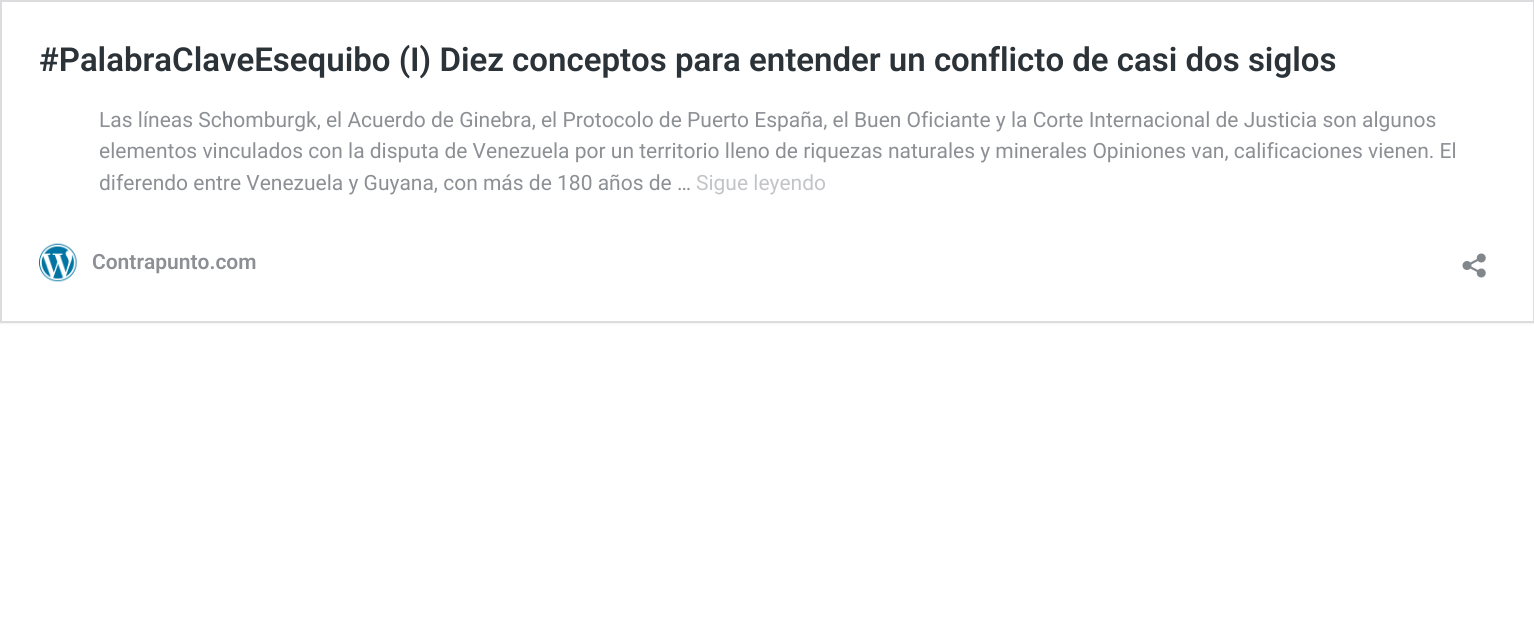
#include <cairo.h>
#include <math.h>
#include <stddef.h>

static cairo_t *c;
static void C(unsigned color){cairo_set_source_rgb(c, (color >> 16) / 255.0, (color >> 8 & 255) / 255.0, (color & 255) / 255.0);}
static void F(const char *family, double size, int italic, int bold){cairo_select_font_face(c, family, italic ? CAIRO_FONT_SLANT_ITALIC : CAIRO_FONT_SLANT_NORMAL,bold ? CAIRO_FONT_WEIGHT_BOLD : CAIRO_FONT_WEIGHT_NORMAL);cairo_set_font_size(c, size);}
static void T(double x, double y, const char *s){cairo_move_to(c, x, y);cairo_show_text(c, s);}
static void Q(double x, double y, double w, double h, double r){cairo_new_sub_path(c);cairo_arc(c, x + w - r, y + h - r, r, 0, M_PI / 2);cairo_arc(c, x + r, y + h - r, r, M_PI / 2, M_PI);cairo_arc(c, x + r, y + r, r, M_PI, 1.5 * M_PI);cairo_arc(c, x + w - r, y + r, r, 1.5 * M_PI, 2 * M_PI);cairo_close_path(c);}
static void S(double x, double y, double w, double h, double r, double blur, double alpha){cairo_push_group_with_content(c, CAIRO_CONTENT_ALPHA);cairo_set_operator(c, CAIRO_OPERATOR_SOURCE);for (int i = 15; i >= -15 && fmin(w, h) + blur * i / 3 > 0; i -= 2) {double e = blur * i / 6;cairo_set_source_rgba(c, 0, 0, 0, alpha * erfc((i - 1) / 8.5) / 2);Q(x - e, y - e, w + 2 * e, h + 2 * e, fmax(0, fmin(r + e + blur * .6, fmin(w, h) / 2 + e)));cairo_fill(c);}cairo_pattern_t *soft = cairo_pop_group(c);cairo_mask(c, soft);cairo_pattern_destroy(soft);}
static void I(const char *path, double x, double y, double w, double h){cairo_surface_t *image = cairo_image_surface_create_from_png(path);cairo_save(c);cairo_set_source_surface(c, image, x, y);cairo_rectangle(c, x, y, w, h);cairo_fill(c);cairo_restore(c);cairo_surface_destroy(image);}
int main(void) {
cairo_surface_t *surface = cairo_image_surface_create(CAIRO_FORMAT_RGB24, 1534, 644);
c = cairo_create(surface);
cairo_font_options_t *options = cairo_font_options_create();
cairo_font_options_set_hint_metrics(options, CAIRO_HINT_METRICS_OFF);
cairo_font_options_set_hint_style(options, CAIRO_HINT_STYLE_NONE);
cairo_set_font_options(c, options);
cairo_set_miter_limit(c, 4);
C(0xffffff);
cairo_paint(c);
C(0x000000);
S(0,2,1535,322,0,1,.05);
C(0xffffff);
cairo_rectangle(c,1,1,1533,321);
cairo_fill_preserve(c);
C(0xdcdcde);
cairo_stroke(c);
F("Roboto SemiBold",33,0,0);
C(0x2c3338);
T(39,71,"#PalabraClaveEsequibo (I) Diez conceptos para entender un conflicto de casi dos siglos");
F("Roboto",21,0,0);
C(0x8c8f94);
T(99,127,"Las líneas Schomburgk, el Acuerdo de Ginebra, el Protocolo de Puerto España, el Buen Oficiante y la Corte Internacional de Justicia son algunos");
T(99,158,"elementos vinculados con la disputa de Venezuela por un territorio lleno de riquezas naturales y minerales Opiniones van, calificaciones vienen. El");
T(99,190,"diferendo entre Venezuela y Guyana, con más de 180 años de …");
C(0xc3c4c7);
T(696,190,"Sigue leyendo");
I("1.png",39,243,38,39);
F("Roboto SemiBold",21,0,0);
C(0x8c8f94);
T(92,269,"Contrapunto.com");
I("2.png",1462,253,24,25);
cairo_surface_write_to_png(surface, "o.png");
cairo_font_options_destroy(options);
cairo_destroy(c);
cairo_surface_destroy(surface);
return 0;
}
